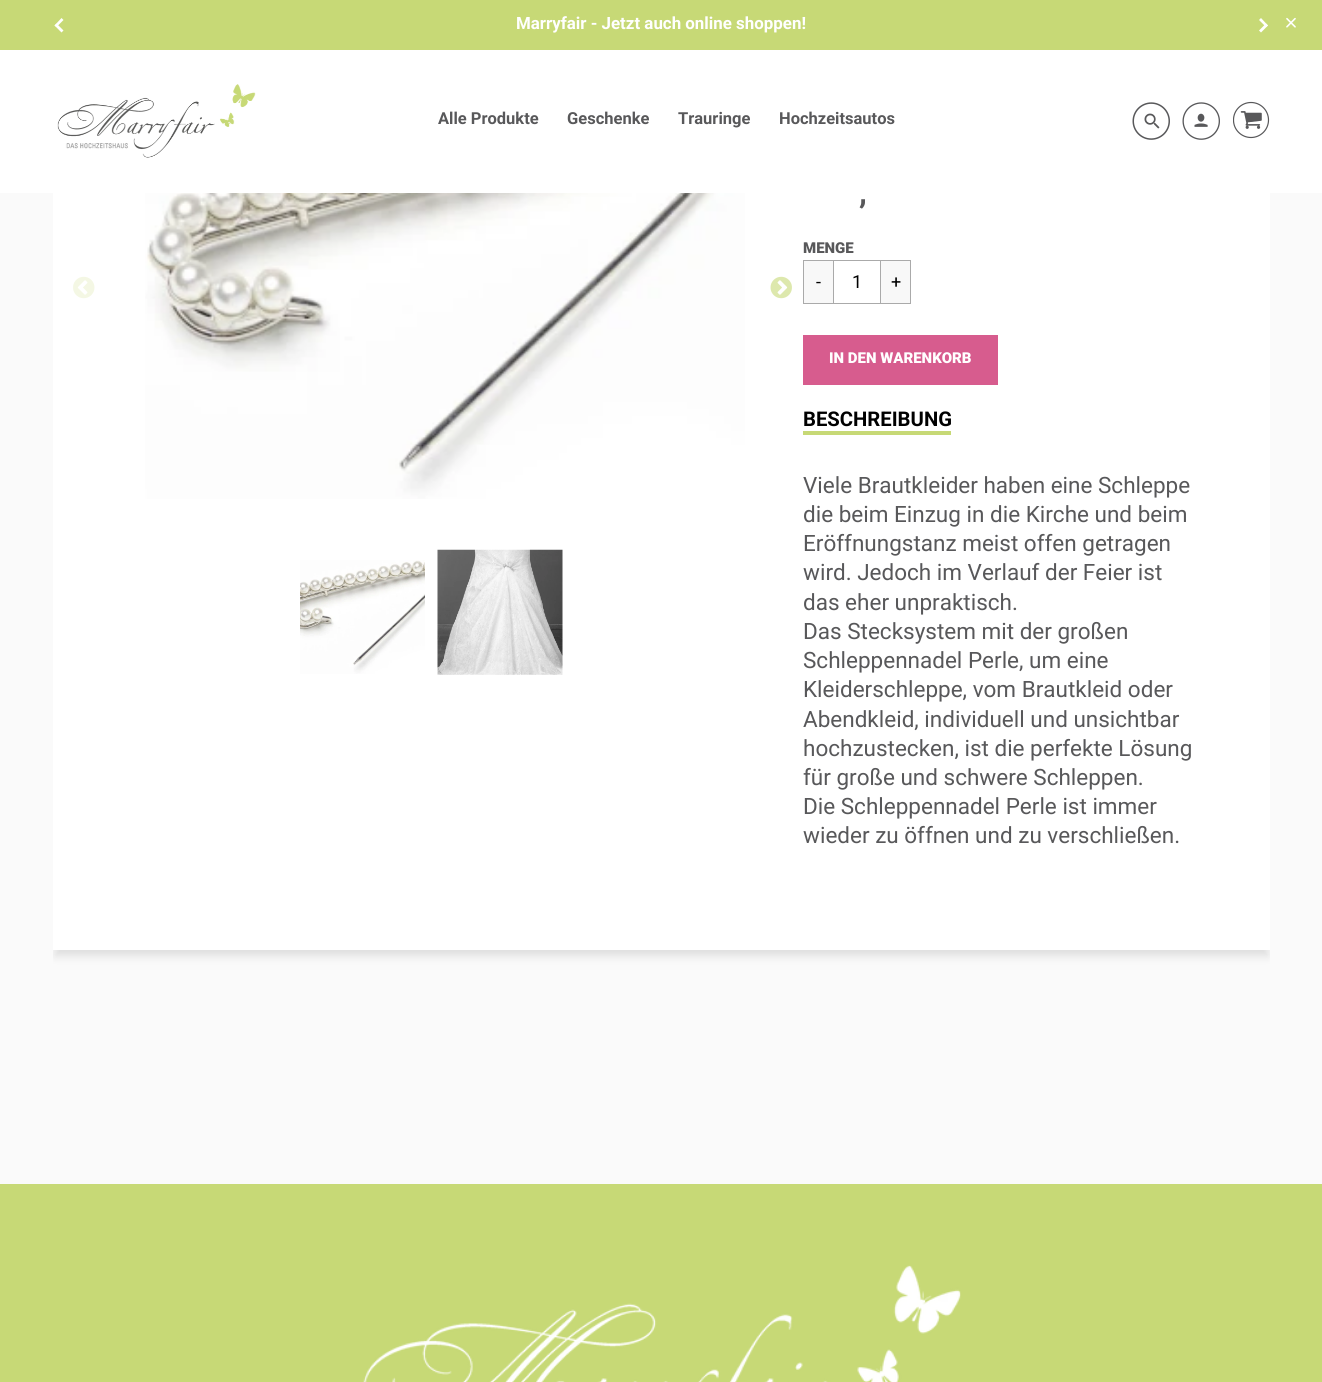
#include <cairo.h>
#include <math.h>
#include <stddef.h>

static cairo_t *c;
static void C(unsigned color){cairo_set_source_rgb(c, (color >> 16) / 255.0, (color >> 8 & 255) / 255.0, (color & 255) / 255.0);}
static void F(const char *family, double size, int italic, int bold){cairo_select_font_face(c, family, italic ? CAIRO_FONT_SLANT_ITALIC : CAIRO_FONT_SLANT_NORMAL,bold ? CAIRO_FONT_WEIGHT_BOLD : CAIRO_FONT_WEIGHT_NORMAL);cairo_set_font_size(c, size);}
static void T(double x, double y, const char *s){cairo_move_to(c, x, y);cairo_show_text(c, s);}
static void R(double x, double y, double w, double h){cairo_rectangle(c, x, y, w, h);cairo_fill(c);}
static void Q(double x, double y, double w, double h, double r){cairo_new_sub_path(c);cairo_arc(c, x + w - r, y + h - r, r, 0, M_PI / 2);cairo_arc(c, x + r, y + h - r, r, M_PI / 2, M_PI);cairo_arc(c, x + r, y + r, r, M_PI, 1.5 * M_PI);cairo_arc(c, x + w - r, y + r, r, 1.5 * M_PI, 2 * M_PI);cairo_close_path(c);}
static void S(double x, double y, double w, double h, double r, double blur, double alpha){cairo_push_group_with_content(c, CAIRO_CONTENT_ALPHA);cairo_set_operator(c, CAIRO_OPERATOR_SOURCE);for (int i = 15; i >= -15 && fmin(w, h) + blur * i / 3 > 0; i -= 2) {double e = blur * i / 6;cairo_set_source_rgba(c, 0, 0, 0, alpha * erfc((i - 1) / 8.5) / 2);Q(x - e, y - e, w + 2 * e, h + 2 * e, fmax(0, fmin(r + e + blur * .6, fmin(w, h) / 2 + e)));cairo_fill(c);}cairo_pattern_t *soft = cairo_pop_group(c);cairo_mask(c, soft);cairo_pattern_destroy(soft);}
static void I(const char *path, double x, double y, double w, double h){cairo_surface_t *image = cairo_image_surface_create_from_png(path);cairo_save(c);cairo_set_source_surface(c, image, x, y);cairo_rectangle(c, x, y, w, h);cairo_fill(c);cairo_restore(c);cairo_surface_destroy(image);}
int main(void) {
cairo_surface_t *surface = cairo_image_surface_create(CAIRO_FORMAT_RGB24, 1322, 1382);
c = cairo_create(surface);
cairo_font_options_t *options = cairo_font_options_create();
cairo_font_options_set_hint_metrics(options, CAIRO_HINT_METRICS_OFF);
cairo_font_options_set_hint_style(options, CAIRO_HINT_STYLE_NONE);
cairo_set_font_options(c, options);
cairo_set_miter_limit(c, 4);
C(0xfafafa);
cairo_paint(c);
cairo_save(c);
cairo_rectangle(c,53,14,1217,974);
cairo_clip(c);
C(0xa3a3a3);
S(55,25,1213,931,0,4.5,.32);
cairo_restore(c);
C(0xc7d976);
R(0,0,1322,50);
C(0xffffff);
cairo_new_path(c);
cairo_move_to(c,61.5,32.5);
cairo_line_to(c,54.5,25.5);
cairo_line_to(c,56.5,23.5);
cairo_line_to(c,63.5,30.5);
cairo_close_path(c);
cairo_fill(c);
cairo_new_path(c);
cairo_move_to(c,56.5,27);
cairo_line_to(c,54.5,25.5);
cairo_line_to(c,61.5,18);
cairo_line_to(c,63.5,20);
cairo_close_path(c);
cairo_fill(c);
F("Roboto",16.9,0,1);
T(516,29,"Marryfair - Jetzt auch online shoppen!");
cairo_new_path(c);
cairo_move_to(c,1261,18);
cairo_line_to(c,1268,25.5);
cairo_line_to(c,1266,27);
cairo_line_to(c,1259,20);
cairo_close_path(c);
cairo_fill(c);
cairo_new_path(c);
cairo_move_to(c,1266,23.5);
cairo_line_to(c,1268,25.5);
cairo_line_to(c,1261,32.5);
cairo_line_to(c,1259,30.5);
cairo_close_path(c);
cairo_fill(c);
I("1.png",1286,17,10,11);
R(0,50,1322,143);
I("2.png",57,84,199,74);
F("Roboto",16.5,0,1);
C(0x58585a);
T(438,124,"Alle Produkte");
T(567,124,"Geschenke");
T(678,124,"Trauringe");
T(779,124,"Hochzeitsautos");
I("3.png",1132,102,38,38);
I("4.png",1182,102,38,38);
I("5.png",1233,101,37,38);
C(0xffffff);
R(53,193,1217,757);
I("6.png",73,276,22,23);
I("7.png",145,193,600,306);
I("8.png",770,276,22,23);
I("9.png",300,560,125,114);
I("10.png",437,549,126,126);
F("Roboto",32,0,1);
C(0x58585a);
T(859,203,",");
F("Roboto Black",15,0,0);
T(803,253,"MENGE");
C(0xaaaaaa);
R(833,260,50,1);
R(833,303,50,1);
C(0xf8f8f8);
cairo_rectangle(c,803.5,260.5,30,43);
cairo_fill_preserve(c);
C(0xaaaaaa);
cairo_set_line_width(c,1);
cairo_stroke(c);
F("Roboto",18,0,0);
C(0x000000);
T(816,288,"-");
T(852,288,"1");
C(0xf8f8f8);
cairo_rectangle(c,880.5,260.5,30,43);
cairo_fill_preserve(c);
C(0xaaaaaa);
cairo_stroke(c);
C(0x000000);
T(891,288,"+");
C(0xd75c8e);
R(803,335,195,50);
F("Roboto Black",15,0,0);
C(0xffffff);
T(829,363,"IN DEN WARENKORB");
C(0xc7d976);
R(803,431,148,4);
F("Roboto",20.25,0,1);
C(0x000000);
T(803,426,"BESCHREIBUNG");
F("Roboto",22.5,0,0);
C(0x58585a);
T(803,493,"Viele Brautkleider haben eine Schleppe");
T(803,522,"die beim Einzug in die Kirche und beim");
T(803,551,"Eröffnungstanz meist offen getragen");
T(803,580,"wird. Jedoch im Verlauf der Feier ist");
T(803,610,"das eher unpraktisch.");
T(803,639,"Das Stecksystem mit der großen");
T(803,668,"Schleppennadel Perle, um eine");
T(803,697,"Kleiderschleppe, vom Brautkleid oder");
T(803,727,"Abendkleid, individuell und unsichtbar");
T(803,756,"hochzustecken, ist die perfekte Lösung");
T(803,785,"für große und schwere Schleppen.");
T(803,814,"Die Schleppennadel Perle ist immer");
T(803,843,"wieder zu öffnen und zu verschließen.");
C(0xc7d976);
R(0,1184,1322,198);
I("11.png",363,1265,598,117);
cairo_surface_write_to_png(surface, "o.png");
cairo_font_options_destroy(options);
cairo_destroy(c);
cairo_surface_destroy(surface);
return 0;
}
